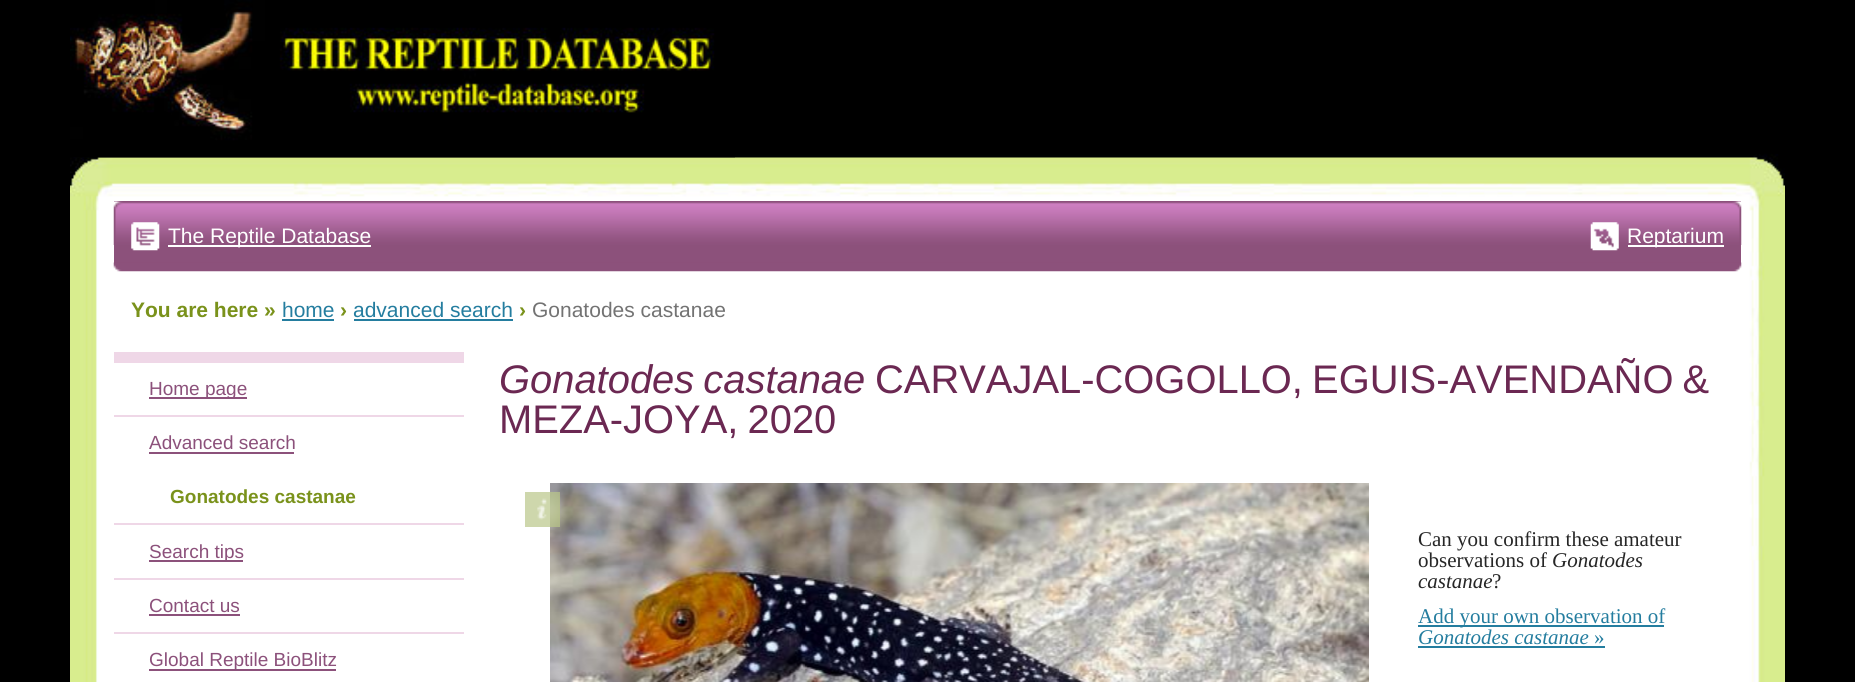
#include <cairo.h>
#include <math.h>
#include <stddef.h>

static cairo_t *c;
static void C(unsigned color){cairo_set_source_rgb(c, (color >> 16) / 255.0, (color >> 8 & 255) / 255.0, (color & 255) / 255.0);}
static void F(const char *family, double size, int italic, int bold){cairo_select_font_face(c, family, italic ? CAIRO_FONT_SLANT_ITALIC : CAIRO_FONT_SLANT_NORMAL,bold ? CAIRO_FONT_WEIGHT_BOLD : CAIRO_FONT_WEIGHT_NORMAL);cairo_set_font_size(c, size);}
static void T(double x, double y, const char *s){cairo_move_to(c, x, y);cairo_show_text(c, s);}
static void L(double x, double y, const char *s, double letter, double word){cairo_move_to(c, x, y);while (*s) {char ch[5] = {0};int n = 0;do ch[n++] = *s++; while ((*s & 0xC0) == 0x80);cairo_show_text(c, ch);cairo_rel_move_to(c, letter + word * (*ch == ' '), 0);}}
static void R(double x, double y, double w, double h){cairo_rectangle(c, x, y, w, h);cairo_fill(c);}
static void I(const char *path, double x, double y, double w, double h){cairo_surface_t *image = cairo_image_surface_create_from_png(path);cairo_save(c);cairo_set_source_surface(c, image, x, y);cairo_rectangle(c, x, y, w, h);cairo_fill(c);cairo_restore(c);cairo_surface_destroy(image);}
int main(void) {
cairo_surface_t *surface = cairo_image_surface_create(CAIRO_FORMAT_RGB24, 1855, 682);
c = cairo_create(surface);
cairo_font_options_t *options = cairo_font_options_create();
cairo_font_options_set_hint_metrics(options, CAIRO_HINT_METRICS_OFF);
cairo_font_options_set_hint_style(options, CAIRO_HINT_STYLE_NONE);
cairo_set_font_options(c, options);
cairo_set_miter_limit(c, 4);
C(0x000000);
cairo_paint(c);
I("1.png",70,0,1715,682);
I("2.png",70,0,665,158);
C(0x8c517b);
R(114,201,1627,62);
I("3.png",113,201,1629,44);
I("4.png",131,222,29,29);
C(0xffffff);
R(168,245,203,2);
F("Liberation Sans",21,0,0);
T(168,243,"The Reptile Database");
I("5.png",1590,222,29,29);
R(1628,245,96,2);
T(1627,243,"Reptarium");
I("6.png",113,262,1629,10);
F("Liberation Sans",21,0,1);
C(0x7a921b);
T(131,317,"You are here »");
F("Liberation Sans",21,0,0);
C(0x247d9f);
T(282,317,"home");
R(282,319,52,2);
F("Liberation Sans",21,0,1);
C(0x7a921b);
T(340,317,"›");
F("Liberation Sans",21,0,0);
C(0x247d9f);
T(353,317,"advanced search");
R(354,319,159,2);
F("Liberation Sans",21,0,1);
C(0x7a921b);
T(519,317,"›");
F("Liberation Sans",21,0,0);
C(0x737373);
T(532,317,"Gonatodes castanae");
C(0xefd7e7);
R(114,352,350,11);
C(0x8c517b);
R(149,397,98,2);
F("Liberation Sans",19,0,0);
T(149,395,"Home page");
C(0xefd7e7);
R(114,415,350,2);
C(0x8c517b);
T(149,449,"Advanced search");
R(149,452,145,2);
F("Liberation Sans",19,0,1);
C(0x7a921b);
T(170,503,"Gonatodes castanae");
C(0xefd7e7);
R(114,523,350,2);
C(0x8c517b);
R(149,560,94,2);
F("Liberation Sans",19,0,0);
T(149,558,"Search tips");
C(0xefd7e7);
R(114,578,350,2);
C(0x8c517b);
T(149,612,"Contact us");
R(149,614,91,2);
C(0xefd7e7);
R(114,632,350,2);
C(0x8c517b);
R(149,669,187,2);
T(149,666,"Global Reptile BioBlitz");
F("Liberation Sans",39.9,1,0);
C(0x6b2852);
L(499,393,"Gonatodes castanae",0,-2);
F("Liberation Sans",39.9,0,0);
L(875,393,"CARVAJAL-COGOLLO, EGUIS-AVENDAÑO &",0,-2);
L(499,433,"MEZA-JOYA, 2020",0,-2);
C(0x247d9f);
R(1418,625,246,2);
F("Liberation Serif",21,0,0);
T(1418,623,"Add your own observation of");
C(0xffffff);
R(1417,622,1,1);
I("8.png",550,483,819,199);
cairo_set_source_rgba(c,0.729,0.78,0.537,0.7);
R(525,492,35,35);
I("7.png",537,498,10,22);
C(0x262626);
T(1418,546,"Can you confirm these amateur");
T(1418,567,"observations of");
F("Liberation Serif",21,1,0);
T(1552,567,"Gonatodes");
T(1418,588,"castanae");
F("Liberation Serif",21,0,0);
T(1492,588,"?");
F("Liberation Serif",21,1,0);
C(0x247d9f);
T(1418,644,"Gonatodes castanae");
F("Liberation Serif",21,0,0);
T(1594,644,"»");
R(1418,646,187,2);
cairo_surface_write_to_png(surface, "o.png");
cairo_font_options_destroy(options);
cairo_destroy(c);
cairo_surface_destroy(surface);
return 0;
}
